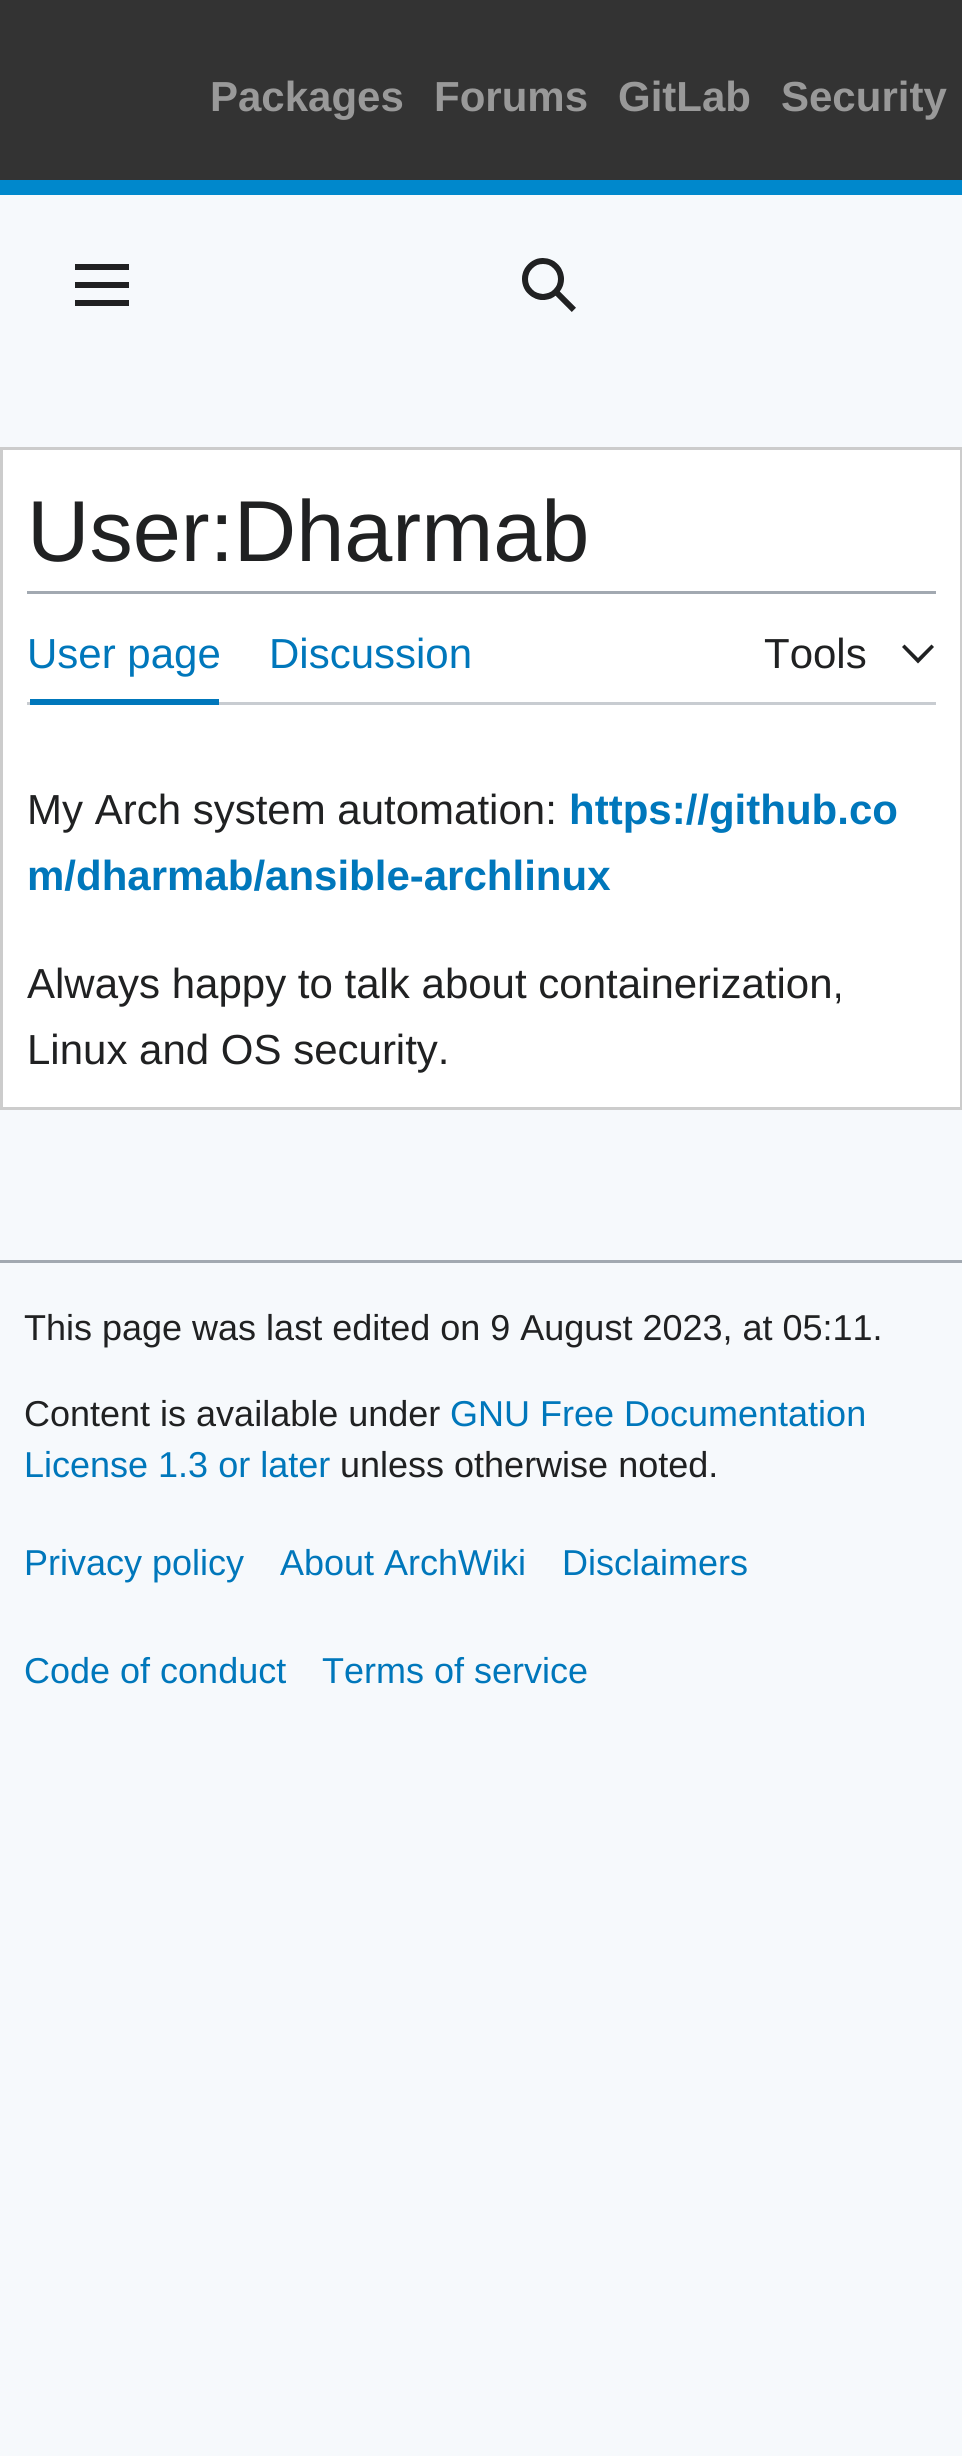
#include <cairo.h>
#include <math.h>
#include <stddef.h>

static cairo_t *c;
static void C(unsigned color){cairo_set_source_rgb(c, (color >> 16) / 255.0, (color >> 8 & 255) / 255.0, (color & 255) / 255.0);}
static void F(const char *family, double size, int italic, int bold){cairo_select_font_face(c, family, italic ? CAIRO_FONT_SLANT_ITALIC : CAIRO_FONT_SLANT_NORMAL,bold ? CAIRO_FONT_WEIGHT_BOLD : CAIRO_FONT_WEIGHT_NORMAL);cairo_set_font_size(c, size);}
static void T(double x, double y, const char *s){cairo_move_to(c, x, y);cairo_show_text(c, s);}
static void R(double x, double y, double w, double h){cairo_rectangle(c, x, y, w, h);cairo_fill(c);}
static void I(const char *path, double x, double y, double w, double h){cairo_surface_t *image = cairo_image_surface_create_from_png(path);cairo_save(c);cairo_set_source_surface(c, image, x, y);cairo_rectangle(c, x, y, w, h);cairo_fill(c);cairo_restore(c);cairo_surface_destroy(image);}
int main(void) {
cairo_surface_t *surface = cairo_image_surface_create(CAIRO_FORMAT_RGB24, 962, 2456);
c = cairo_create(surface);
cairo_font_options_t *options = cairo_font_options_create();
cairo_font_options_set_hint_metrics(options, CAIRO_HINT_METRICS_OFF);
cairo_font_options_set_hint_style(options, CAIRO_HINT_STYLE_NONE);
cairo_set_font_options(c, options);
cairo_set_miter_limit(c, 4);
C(0xf6f9fc);
cairo_paint(c);
C(0x333333);
R(0,0,962,180);
C(0x0088cc);
R(0,180,962,15);
F("Liberation Sans",42,0,1);
C(0x999999);
T(210,111,"Packages");
T(434,111,"Forums");
T(618,111,"GitLab");
T(781,111,"Security");
I("1.png",75,264,54,42);
I("2.png",522,258,54,54);
C(0xffffff);
cairo_rectangle(c,1.5,448.5,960,660);
cairo_fill_preserve(c);
C(0xcccccc);
cairo_set_line_width(c,3);
cairo_stroke(c);
F("Liberation Sans",86.5,0,0);
C(0x202122);
T(27,561,"User:Dharmab");
C(0xa2a9b1);
R(27,591,909,3);
C(0xc8ccd1);
R(27,702,909,3);
C(0x0077bb);
R(30,699,189,6);
F("Liberation Sans",42,0,0);
T(27,668,"User page");
T(269,668,"Discussion");
C(0x202122);
T(764,668,"Tools");
cairo_new_path(c);
cairo_move_to(c,931.5,644.5);
cairo_line_to(c,918,658);
cairo_line_to(c,904.5,644.5);
cairo_line_to(c,902,647);
cairo_line_to(c,918,663.5);
cairo_line_to(c,934,647);
cairo_close_path(c);
cairo_fill(c);
T(27,824,"My Arch system automation:");
F("Liberation Sans",42,0,1);
C(0x0077bb);
T(569,824,"https://github.co");
T(27,890,"m/dharmab/ansible-archlinux");
F("Liberation Sans",42,0,0);
C(0x202122);
T(27,998,"Always happy to talk about containerization,");
T(27,1064,"Linux and OS security.");
C(0xa2a9b1);
R(0,1260,962,3);
F("Liberation Sans",36,0,0);
C(0x202122);
T(24,1340,"This page was last edited on 9 August 2023, at 05:11.");
T(24,1426,"Content is available under");
C(0x0077bb);
T(450,1426,"GNU Free Documentation");
T(24,1477,"License 1.3 or later");
C(0x202122);
T(340,1477,"unless otherwise noted.");
C(0x0077bb);
T(24,1575,"Privacy policy");
T(280,1575,"About ArchWiki");
T(562,1575,"Disclaimers");
T(24,1683,"Code of conduct");
T(322,1683,"Terms of service");
cairo_surface_write_to_png(surface, "o.png");
cairo_font_options_destroy(options);
cairo_destroy(c);
cairo_surface_destroy(surface);
return 0;
}
